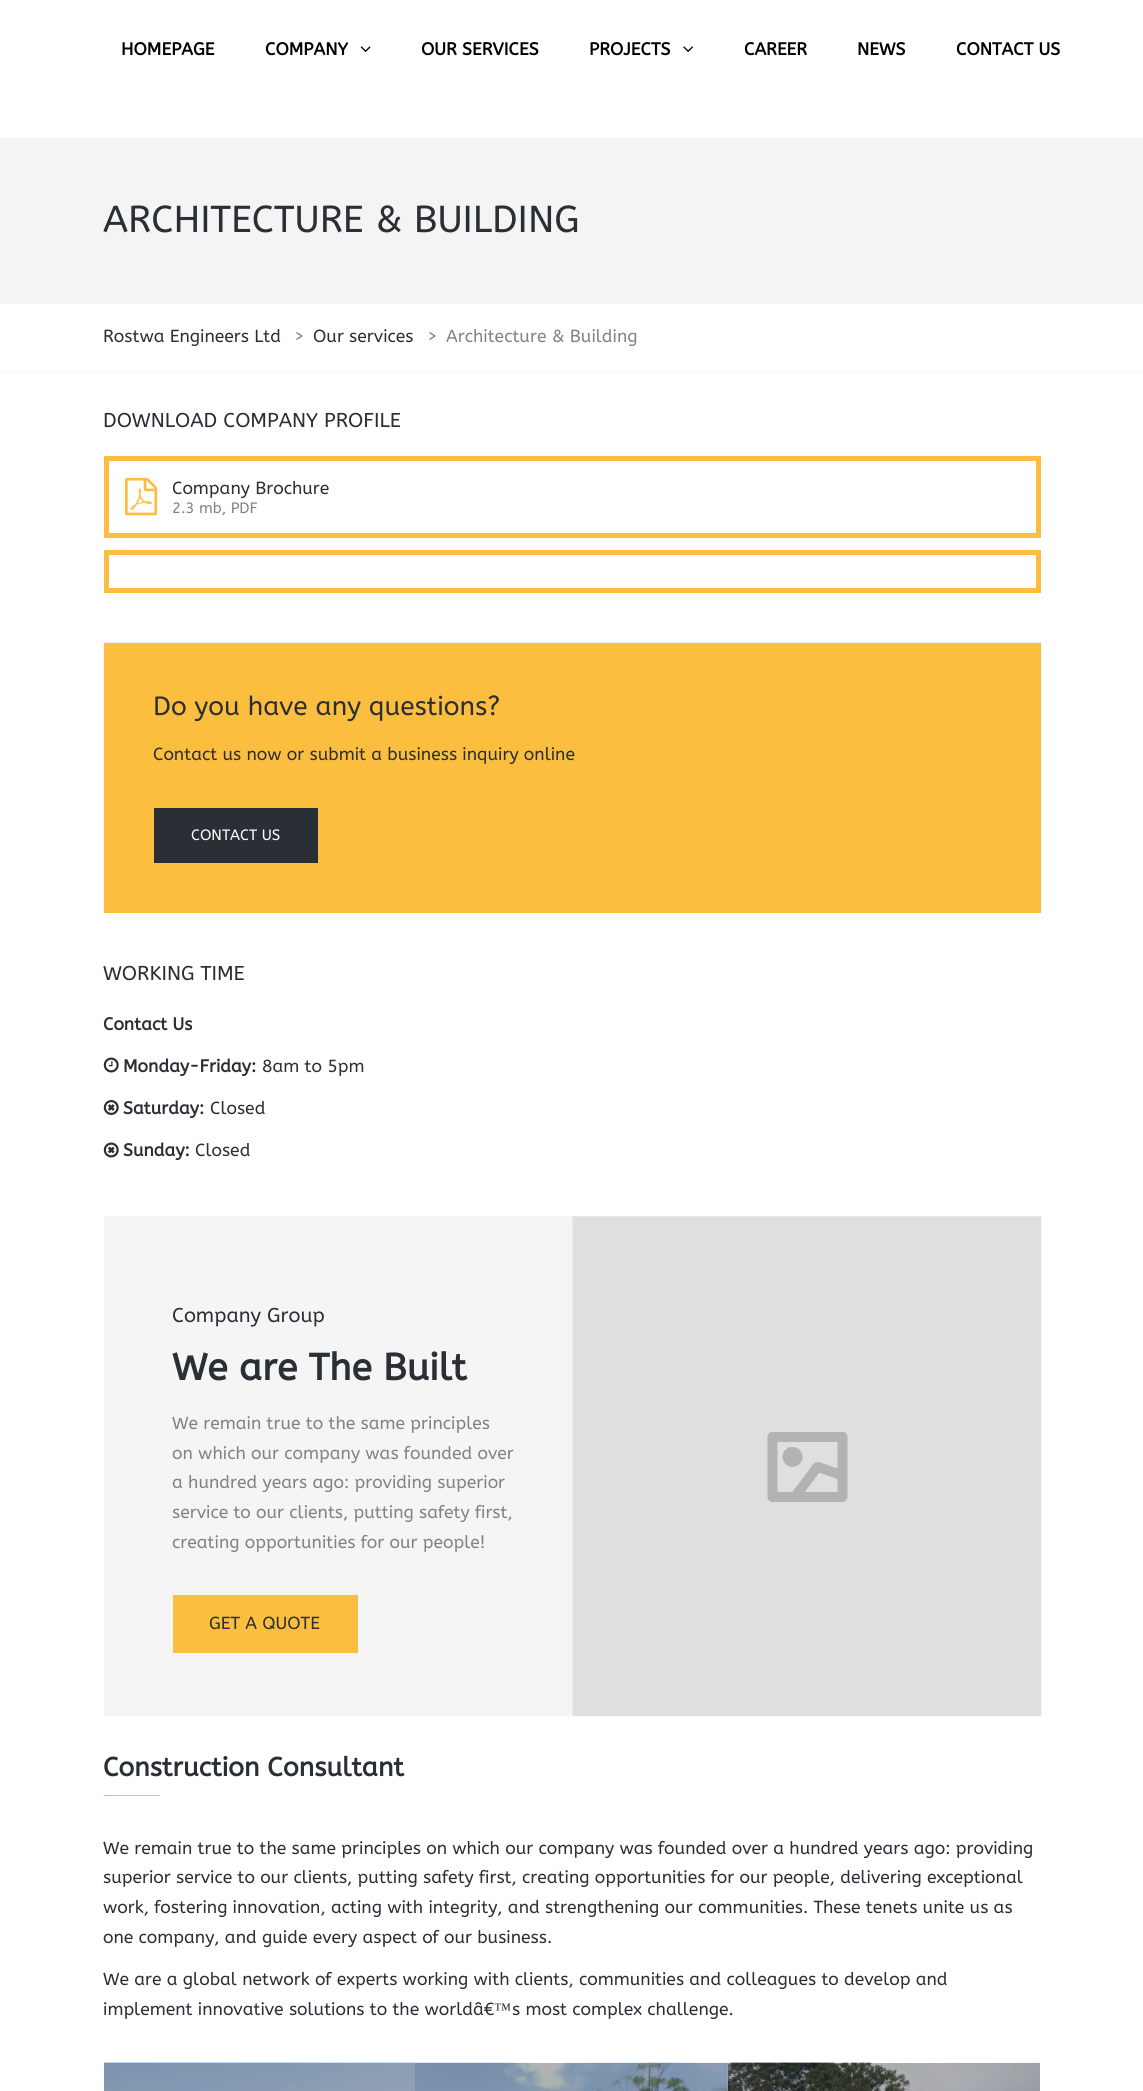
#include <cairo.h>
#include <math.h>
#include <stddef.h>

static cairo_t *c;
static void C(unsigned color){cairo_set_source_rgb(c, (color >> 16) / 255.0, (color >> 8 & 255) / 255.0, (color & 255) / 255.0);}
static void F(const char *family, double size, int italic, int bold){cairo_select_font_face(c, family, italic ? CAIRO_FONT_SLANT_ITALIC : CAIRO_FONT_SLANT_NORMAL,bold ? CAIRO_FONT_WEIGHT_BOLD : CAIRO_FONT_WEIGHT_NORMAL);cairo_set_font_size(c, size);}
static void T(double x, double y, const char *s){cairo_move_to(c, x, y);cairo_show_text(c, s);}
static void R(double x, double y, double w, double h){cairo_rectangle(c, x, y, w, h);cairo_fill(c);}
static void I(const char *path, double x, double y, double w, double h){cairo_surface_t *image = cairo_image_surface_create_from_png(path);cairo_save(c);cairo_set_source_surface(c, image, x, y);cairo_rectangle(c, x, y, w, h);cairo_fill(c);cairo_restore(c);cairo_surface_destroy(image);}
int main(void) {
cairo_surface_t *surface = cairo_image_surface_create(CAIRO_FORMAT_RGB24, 1143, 2091);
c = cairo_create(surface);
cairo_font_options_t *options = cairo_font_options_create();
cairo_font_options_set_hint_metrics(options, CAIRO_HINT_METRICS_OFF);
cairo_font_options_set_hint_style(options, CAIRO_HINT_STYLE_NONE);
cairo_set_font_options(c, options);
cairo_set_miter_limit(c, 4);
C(0xffffff);
cairo_paint(c);
F("ABeeZee",17.5,0,1);
C(0x000000);
T(121,55,"HOMEPAGE");
T(265,55,"COMPANY");
I("1.png",360,46,11,6);
T(421,55,"OUR SERVICES");
T(589,55,"PROJECTS");
I("2.png",683,46,10,6);
T(744,55,"CAREER");
T(857,55,"NEWS");
T(956,55,"CONTACT US");
C(0xf4f4f4);
R(0,138,1143,166);
F("ABeeZee",37.5,0,0);
C(0x2a2f35);
T(103,232,"ARCHITECTURE & BUILDING");
C(0xf5f5f5);
R(0,371,1143,1);
F("ABeeZee",17.5,0,0);
C(0x2a2f35);
T(103,342,"Rostwa Engineers Ltd");
C(0x828282);
T(294,342,">");
C(0x2a2f35);
T(313,342,"Our services");
C(0x828282);
T(427,342,">");
T(446,342,"Architecture & Building");
F("ABeeZee",20,0,0);
C(0x2a2f35);
T(103,427,"DOWNLOAD COMPANY PROFILE");
cairo_rectangle(c,106.5,458.5,932,77);
C(0xfbbe3f);
cairo_set_line_width(c,5);
cairo_stroke(c);
I("3.png",125,477,33,39);
F("ABeeZee",17.5,0,0);
C(0x2a2f35);
T(172,494,"Company Brochure");
F("ABeeZee",15,0,0);
C(0x828282);
T(172,513,"2.3 mb, PDF");
cairo_rectangle(c,106.5,552.5,932,38);
C(0xfbbe3f);
cairo_stroke(c);
I("4.png",103,642,939,271);
R(104,643,937,270);
F("ABeeZee",26.25,0,0);
C(0x2a2f35);
T(153,715,"Do you have any questions?");
F("ABeeZee",17.5,0,0);
T(153,760,"Contact us now or submit a business inquiry online");
R(154,808,164,55);
F("ABeeZee",15,0,0);
C(0xffffff);
T(191,840,"CONTACT US");
F("ABeeZee",20,0,0);
C(0x2a2f35);
T(103,980,"WORKING TIME");
F("ABeeZee",17.5,0,1);
T(103,1030,"Contact Us");
I("5.png",103,1057,16,16);
T(123,1072,"Monday-Friday:");
F("ABeeZee",17.5,0,0);
T(262,1072,"8am to 5pm");
I("6.png",103,1100,16,15);
F("ABeeZee",17.5,0,1);
T(123,1114,"Saturday:");
F("ABeeZee",17.5,0,0);
T(210,1114,"Closed");
I("7.png",103,1142,16,16);
F("ABeeZee",17.5,0,1);
T(123,1156,"Sunday:");
F("ABeeZee",17.5,0,0);
T(195,1156,"Closed");
C(0xf5f5f5);
R(104,1216,469,500);
F("ABeeZee",20,0,0);
C(0x2a2f35);
T(172,1322,"Company Group");
F("ABeeZee",37.5,0,1);
T(172,1380,"We are The Built");
F("ABeeZee",17.5,0,0);
C(0x828282);
T(172,1429,"We remain true to the same principles");
T(172,1459,"on which our company was founded over");
T(172,1488,"a hundred years ago: providing superior");
T(172,1518,"service to our clients, putting safety first,");
T(172,1548,"creating opportunities for our people!");
C(0xfbbe3f);
R(173,1595,185,58);
C(0x2a2f35);
T(209,1629,"GET A QUOTE");
I("8.png",572,1216,470,501);
F("ABeeZee",26.25,0,1);
T(103,1776,"Construction Consultant");
C(0xfbbe3f);
R(104,1795,56,1);
F("ABeeZee",17.5,0,0);
C(0x2a2f35);
T(103,1854,"We remain true to the same principles on which our company was founded over a hundred years ago: providing");
T(103,1883,"superior service to our clients, putting safety first, creating opportunities for our people, delivering exceptional");
T(103,1913,"work, fostering innovation, acting with integrity, and strengthening our communities. These tenets unite us as");
T(103,1943,"one company, and guide every aspect of our business.");
T(103,1985,"We are a global network of experts working with clients, communities and colleagues to develop and");
T(103,2015,"implement innovative solutions to the worldâ€");
F("Liberation Serif",17.5,0,0);
T(494,2015,"™");
F("ABeeZee",17.5,0,0);
T(512,2015,"s most complex challenge.");
I("9.png",104,2062,311,29);
C(0xa7a7a7);
R(727,2063,1,28);
I("10.png",415,2062,313,29);
I("11.png",728,2062,312,29);
cairo_surface_write_to_png(surface, "o.png");
cairo_font_options_destroy(options);
cairo_destroy(c);
cairo_surface_destroy(surface);
return 0;
}
